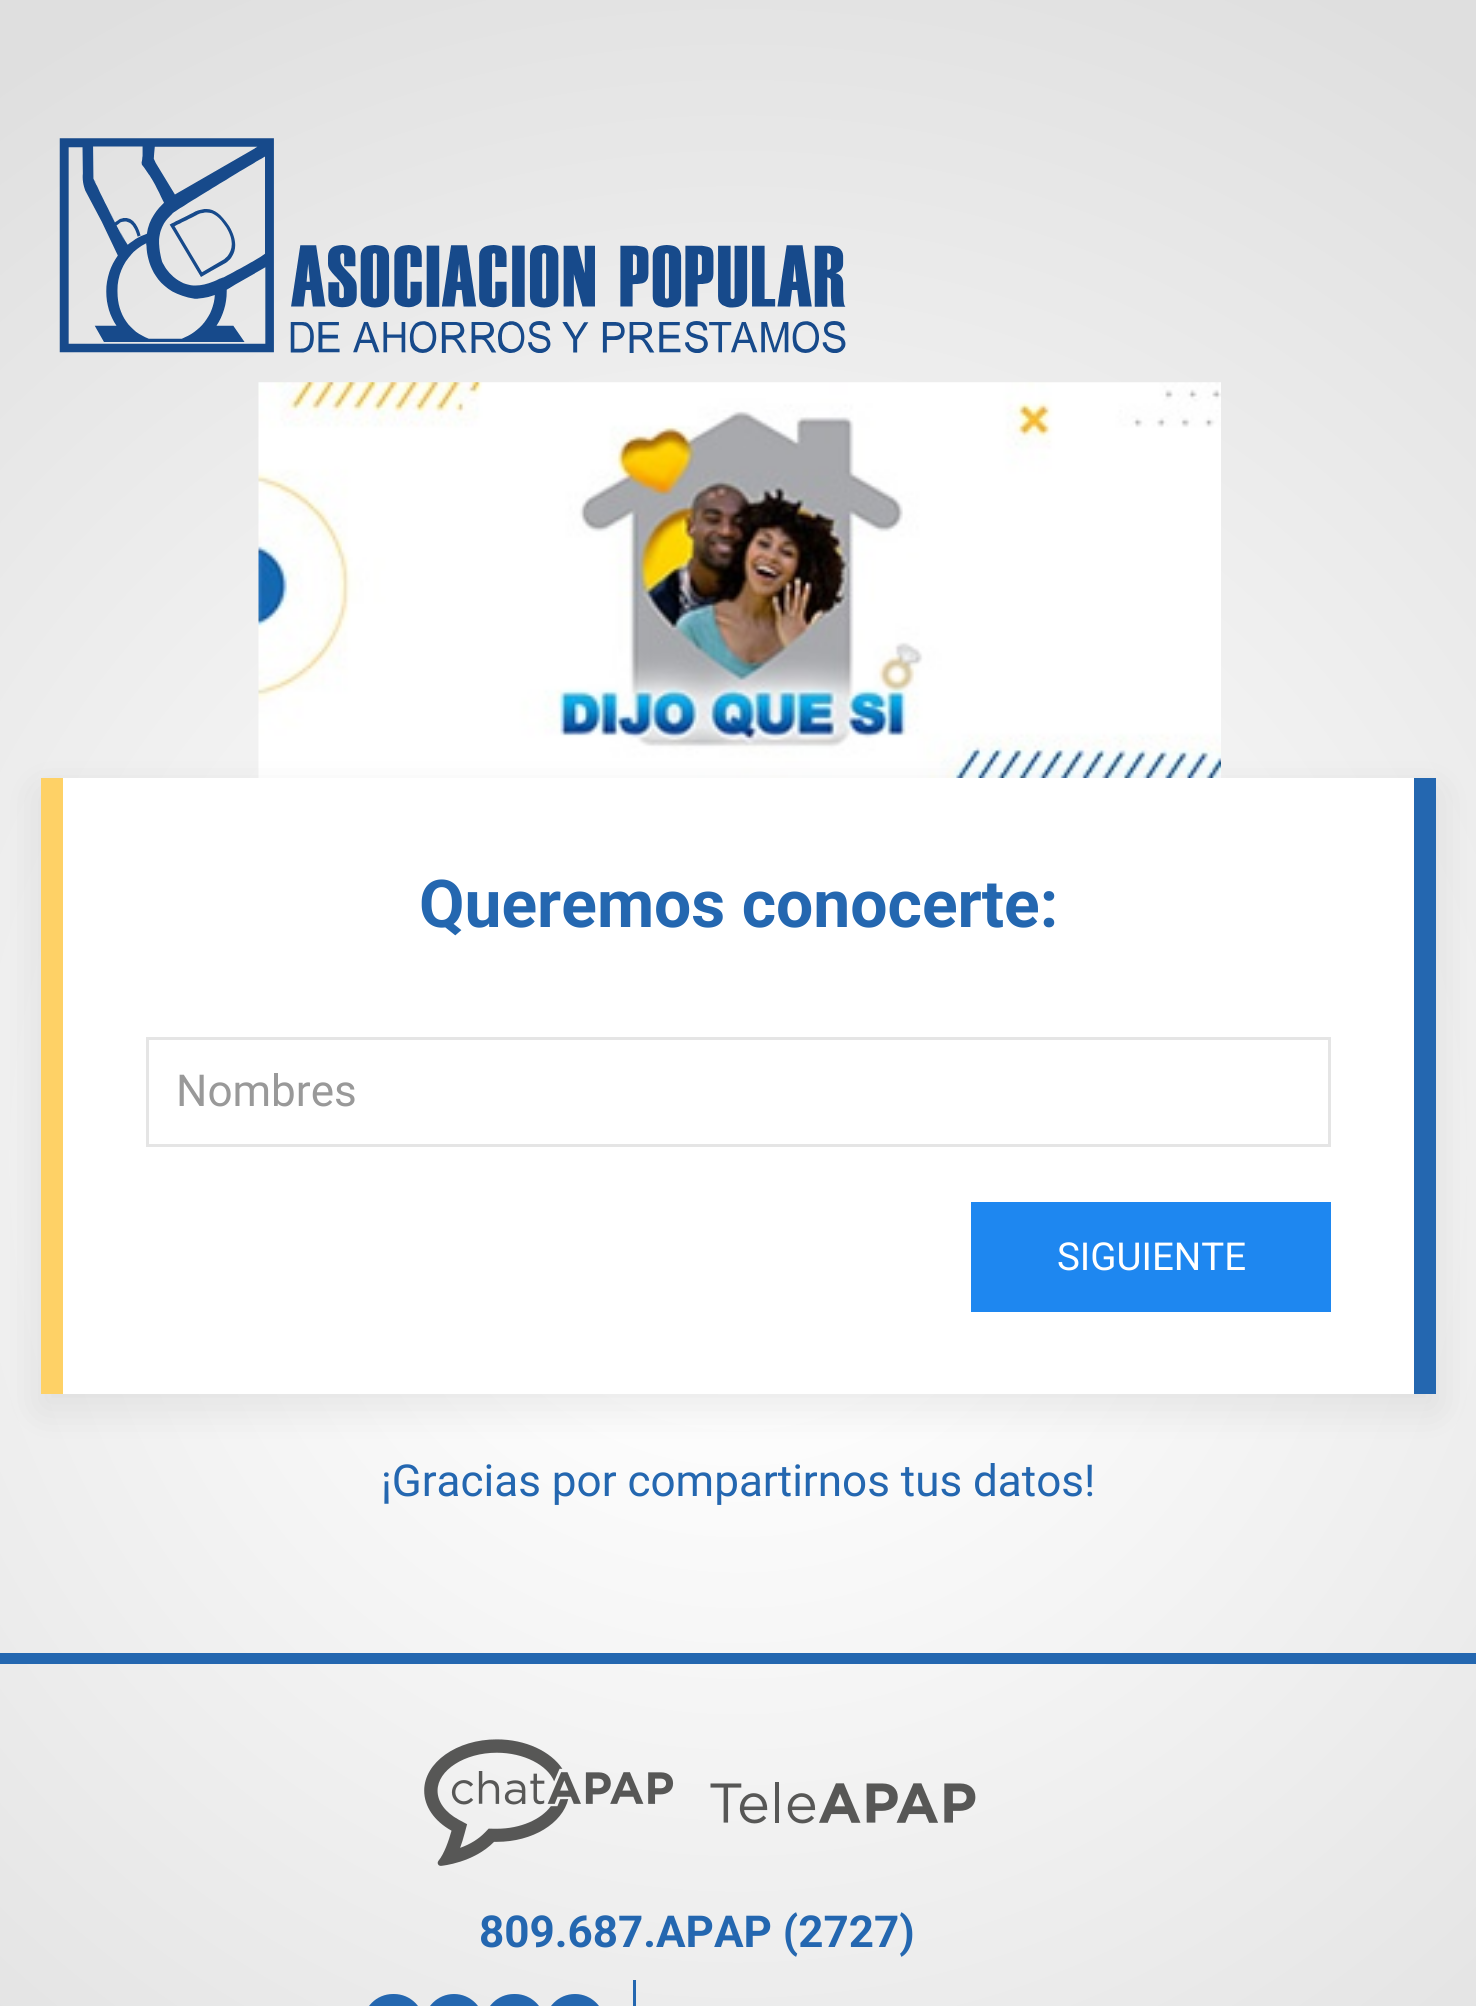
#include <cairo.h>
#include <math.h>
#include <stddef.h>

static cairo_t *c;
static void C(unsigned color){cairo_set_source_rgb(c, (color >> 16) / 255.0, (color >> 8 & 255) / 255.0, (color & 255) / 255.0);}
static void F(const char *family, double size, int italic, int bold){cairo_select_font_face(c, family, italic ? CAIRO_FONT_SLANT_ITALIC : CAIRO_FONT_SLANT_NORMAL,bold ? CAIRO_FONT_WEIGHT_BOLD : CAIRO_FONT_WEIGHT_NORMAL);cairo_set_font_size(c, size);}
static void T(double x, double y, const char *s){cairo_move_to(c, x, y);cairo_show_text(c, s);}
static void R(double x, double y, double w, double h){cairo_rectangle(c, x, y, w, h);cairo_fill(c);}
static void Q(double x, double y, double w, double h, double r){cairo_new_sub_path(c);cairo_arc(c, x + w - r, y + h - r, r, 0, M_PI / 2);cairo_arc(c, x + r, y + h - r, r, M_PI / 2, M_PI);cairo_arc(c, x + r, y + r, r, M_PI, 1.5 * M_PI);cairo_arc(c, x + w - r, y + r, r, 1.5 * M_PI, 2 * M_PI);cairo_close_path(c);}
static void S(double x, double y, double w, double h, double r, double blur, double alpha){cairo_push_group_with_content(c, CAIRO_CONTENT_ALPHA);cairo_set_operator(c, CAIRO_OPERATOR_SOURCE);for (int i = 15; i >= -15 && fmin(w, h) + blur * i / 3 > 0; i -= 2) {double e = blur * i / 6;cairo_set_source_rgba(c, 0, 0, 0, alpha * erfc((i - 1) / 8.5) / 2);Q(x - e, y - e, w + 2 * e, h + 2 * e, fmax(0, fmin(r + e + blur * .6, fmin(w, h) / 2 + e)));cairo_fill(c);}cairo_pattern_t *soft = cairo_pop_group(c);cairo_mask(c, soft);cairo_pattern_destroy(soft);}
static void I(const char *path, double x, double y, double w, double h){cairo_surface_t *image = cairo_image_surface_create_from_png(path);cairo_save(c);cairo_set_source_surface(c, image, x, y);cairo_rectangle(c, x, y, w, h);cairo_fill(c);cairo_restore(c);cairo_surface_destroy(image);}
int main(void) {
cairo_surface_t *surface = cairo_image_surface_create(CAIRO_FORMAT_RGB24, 1476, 2006);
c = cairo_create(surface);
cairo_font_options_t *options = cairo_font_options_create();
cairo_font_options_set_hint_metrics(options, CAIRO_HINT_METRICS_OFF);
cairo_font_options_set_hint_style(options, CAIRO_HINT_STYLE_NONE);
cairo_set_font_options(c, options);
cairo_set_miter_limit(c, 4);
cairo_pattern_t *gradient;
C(0xffffff);
cairo_paint(c);
gradient = cairo_pattern_create_radial(738,1163,0,738,1163,1378);
cairo_pattern_add_color_stop_rgba(gradient,.13,1,1,1,1);
cairo_pattern_add_color_stop_rgba(gradient,.95,0.875,0.875,0.875,1);
cairo_set_source(c,gradient);
cairo_pattern_destroy(gradient);
R(0,0,1476,2006);
I("1.png",59,138,787,215);
I("2.png",258,382,963,396);
C(0x000000);
S(41,792,1395,616,0,20.5,.08);
C(0xffffff);
R(63,778,1351,616);
C(0x2467b0);
R(1414,778,22,616);
C(0xfed166);
R(41,778,22,616);
F("Roboto",66,0,1);
C(0x2467b0);
T(419,927,"Queremos conocerte:");
cairo_rectangle(c,147.5,1038.5,1182,107);
C(0xe5e5e5);
cairo_set_line_width(c,3);
cairo_stroke(c);
F("Roboto",44,0,0);
C(0x999999);
T(176,1106,"Nombres");
C(0x1e87f0);
R(971,1202,360,110);
F("Roboto",38.5,0,0);
C(0xffffff);
T(1057,1270,"SIGUIENTE");
F("Roboto",44,0,0);
C(0x2467b0);
T(381,1496,"¡Gracias por compartirnos tus datos!");
R(0,1653,1476,11);
I("3.png",424,1739,250,127);
I("4.png",710,1782,266,42);
F("Roboto",44,0,1);
T(479,1947,"809.687.APAP (2727)");
Q(363,1994,61,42,30);
cairo_fill(c);
Q(424,1994,60,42,30);
cairo_fill(c);
Q(484,1994,61,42,30);
cairo_fill(c);
Q(545,1994,60,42,30);
cairo_fill(c);
R(633,1980,3,26);
cairo_surface_write_to_png(surface, "o.png");
cairo_font_options_destroy(options);
cairo_destroy(c);
cairo_surface_destroy(surface);
return 0;
}
